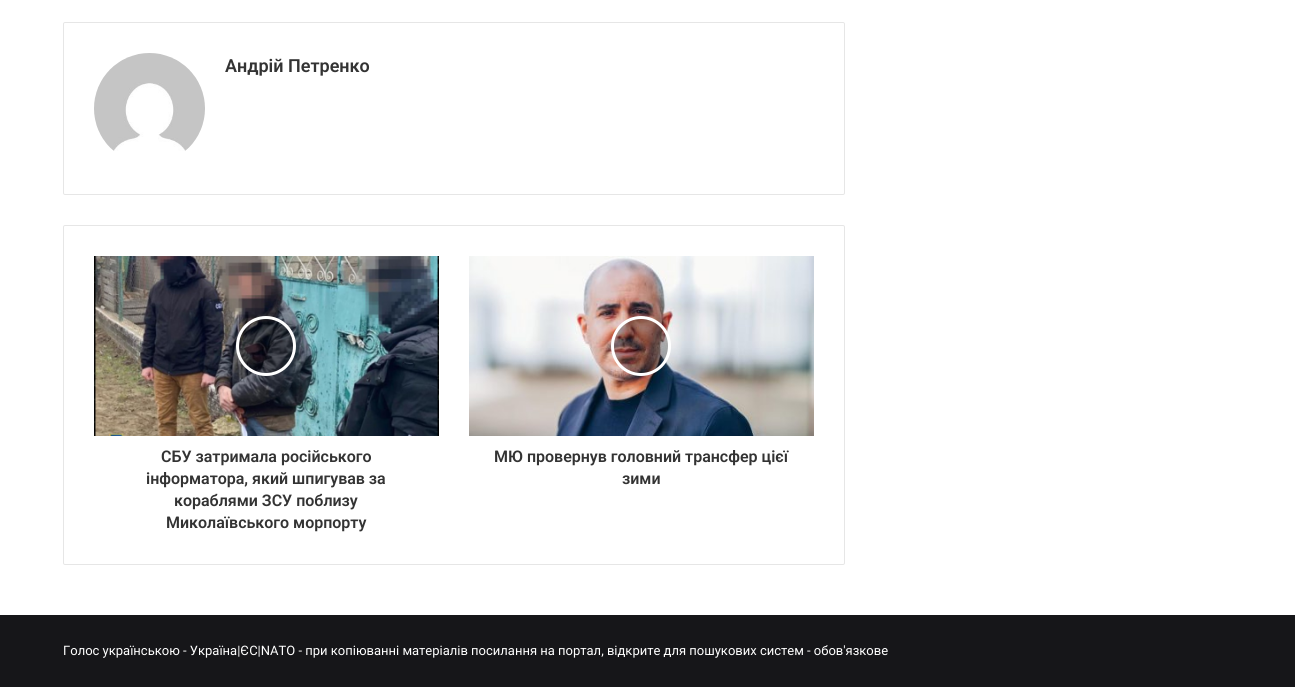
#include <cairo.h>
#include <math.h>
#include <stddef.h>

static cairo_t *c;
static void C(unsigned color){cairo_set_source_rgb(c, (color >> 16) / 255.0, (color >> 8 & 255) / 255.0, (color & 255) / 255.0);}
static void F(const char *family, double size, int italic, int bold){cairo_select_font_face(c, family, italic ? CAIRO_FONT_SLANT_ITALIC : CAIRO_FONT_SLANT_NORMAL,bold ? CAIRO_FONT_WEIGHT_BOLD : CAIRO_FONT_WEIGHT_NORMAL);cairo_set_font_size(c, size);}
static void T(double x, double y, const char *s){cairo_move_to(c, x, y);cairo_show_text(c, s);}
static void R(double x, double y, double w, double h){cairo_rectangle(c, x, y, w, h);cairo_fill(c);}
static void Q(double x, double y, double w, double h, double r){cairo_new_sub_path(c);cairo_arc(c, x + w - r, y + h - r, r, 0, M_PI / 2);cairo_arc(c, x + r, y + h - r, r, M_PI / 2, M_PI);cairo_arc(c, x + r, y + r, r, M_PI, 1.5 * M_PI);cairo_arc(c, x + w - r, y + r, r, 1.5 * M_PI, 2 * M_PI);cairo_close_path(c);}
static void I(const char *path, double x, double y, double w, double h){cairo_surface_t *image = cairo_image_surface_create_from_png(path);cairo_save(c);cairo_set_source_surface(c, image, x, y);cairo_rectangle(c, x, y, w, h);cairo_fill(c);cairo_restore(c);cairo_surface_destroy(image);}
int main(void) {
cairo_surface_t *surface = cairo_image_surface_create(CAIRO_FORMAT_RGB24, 1295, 687);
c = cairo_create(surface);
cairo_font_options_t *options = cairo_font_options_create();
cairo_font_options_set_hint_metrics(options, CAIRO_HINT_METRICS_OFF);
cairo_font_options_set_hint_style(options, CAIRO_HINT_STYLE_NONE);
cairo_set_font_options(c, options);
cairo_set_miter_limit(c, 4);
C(0xffffff);
cairo_paint(c);
Q(63.5,22.5,781,172,1.5);
C(0xe6e6e6);
cairo_set_line_width(c,1);
cairo_stroke(c);
I("1.png",94,53,111,98);
F("Roboto SemiBold",18,0,0);
C(0x333333);
T(225,72,"Андрій Петренко");
Q(63.5,225.5,781,339,1.5);
C(0xe6e6e6);
cairo_stroke(c);
I("2.png",94,256,345,180);
cairo_set_source_rgba(c,0,0,0,0.3);
cairo_arc(c,266,346,28.5,0,2 * M_PI);
cairo_fill_preserve(c);
C(0xffffff);
cairo_set_line_width(c,3);
cairo_stroke(c);
F("Roboto SemiBold",16,0,0);
C(0x333333);
T(161,462,"СБУ затримала російського");
T(146,484,"інформатора, який шпигував за");
T(174,506,"кораблями ЗСУ поблизу");
T(166,528,"Миколаївського морпорту");
I("3.png",469,256,345,180);
cairo_set_source_rgba(c,0,0,0,0.3);
cairo_arc(c,641,346,28.5,0,2 * M_PI);
cairo_fill_preserve(c);
C(0xffffff);
cairo_stroke(c);
C(0x333333);
T(494,462,"МЮ провернув головний трансфер цієї");
T(622,484,"зими");
C(0x161619);
R(0,615,1295,72);
F("Roboto",13,0,0);
C(0xffffff);
T(63,655,"Голос українською - Україна|ЄС|NATO - при копіюванні матеріалів посилання на портал, відкрите для пошукових систем - обов'язкове");
cairo_surface_write_to_png(surface, "o.png");
cairo_font_options_destroy(options);
cairo_destroy(c);
cairo_surface_destroy(surface);
return 0;
}
